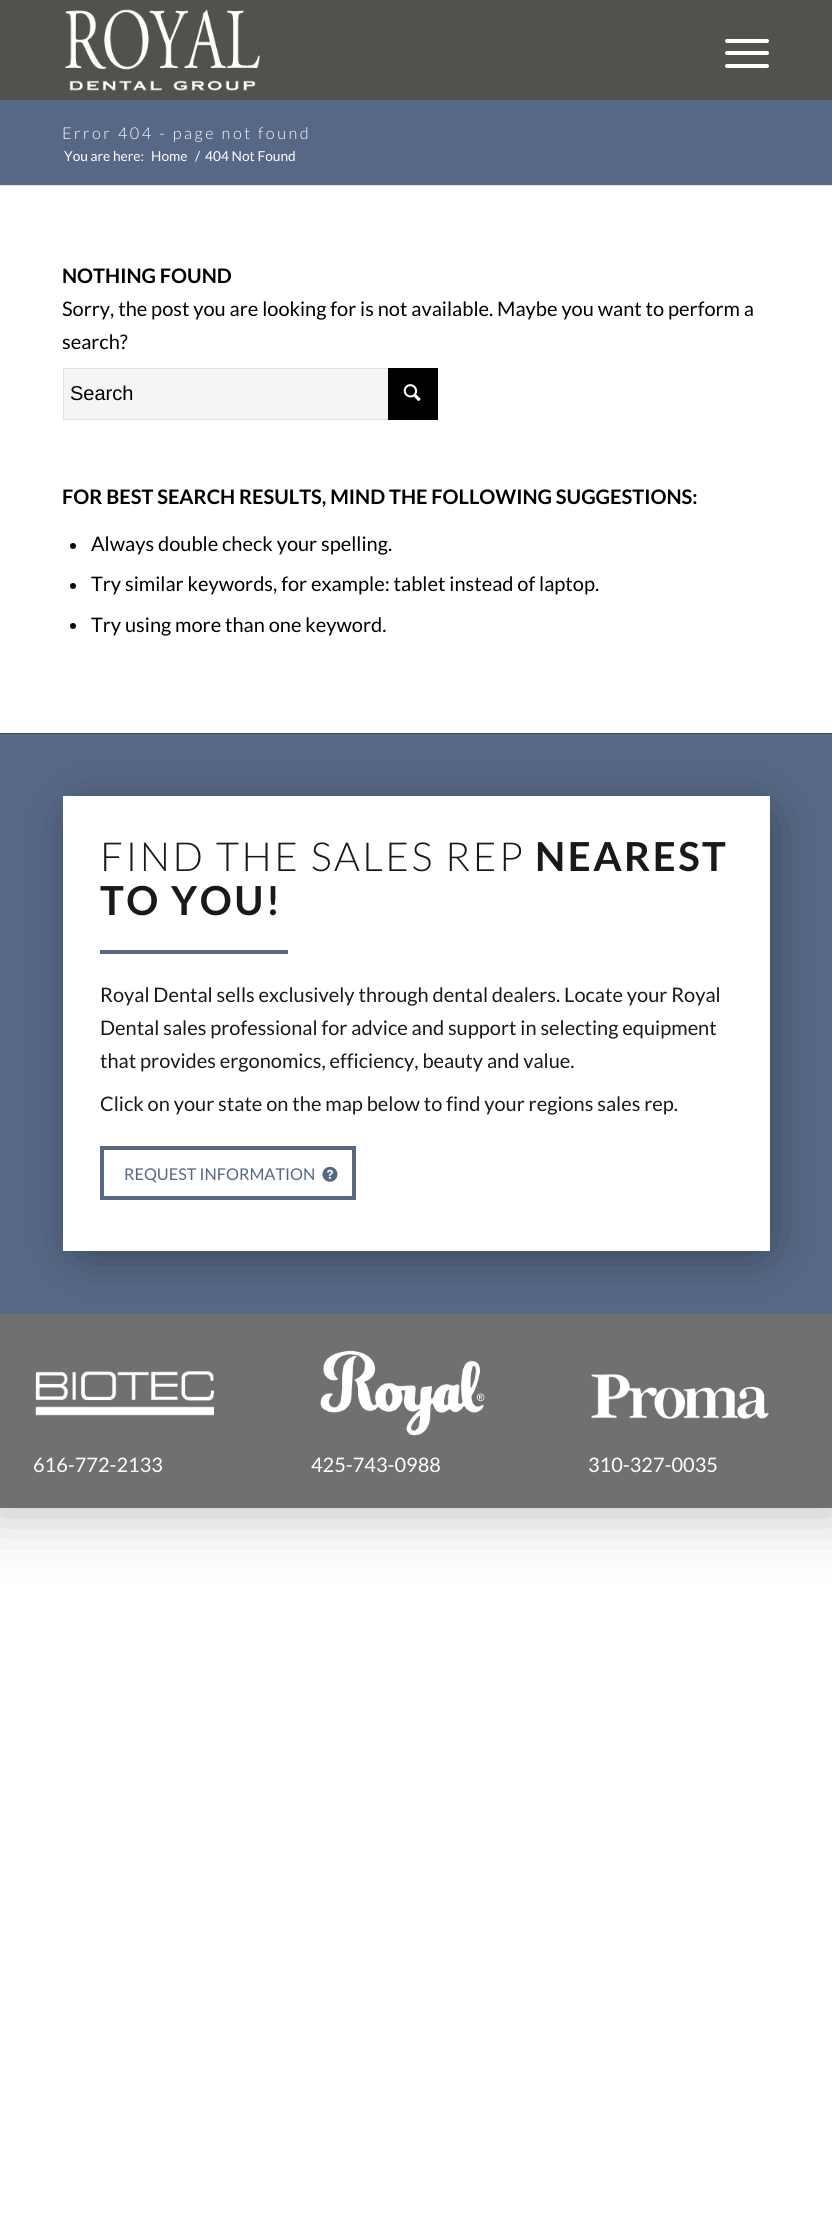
#include <cairo.h>
#include <math.h>
#include <stddef.h>

static cairo_t *c;
static void C(unsigned color){cairo_set_source_rgb(c, (color >> 16) / 255.0, (color >> 8 & 255) / 255.0, (color & 255) / 255.0);}
static void F(const char *family, double size, int italic, int bold){cairo_select_font_face(c, family, italic ? CAIRO_FONT_SLANT_ITALIC : CAIRO_FONT_SLANT_NORMAL,bold ? CAIRO_FONT_WEIGHT_BOLD : CAIRO_FONT_WEIGHT_NORMAL);cairo_set_font_size(c, size);}
static void T(double x, double y, const char *s){cairo_move_to(c, x, y);cairo_show_text(c, s);}
static void L(double x, double y, const char *s, double letter, double word){cairo_move_to(c, x, y);while (*s) {char ch[5] = {0};int n = 0;do ch[n++] = *s++; while ((*s & 0xC0) == 0x80);cairo_show_text(c, ch);cairo_rel_move_to(c, letter + word * (*ch == ' '), 0);}}
static void R(double x, double y, double w, double h){cairo_rectangle(c, x, y, w, h);cairo_fill(c);}
static void Q(double x, double y, double w, double h, double r){cairo_new_sub_path(c);cairo_arc(c, x + w - r, y + h - r, r, 0, M_PI / 2);cairo_arc(c, x + r, y + h - r, r, M_PI / 2, M_PI);cairo_arc(c, x + r, y + r, r, M_PI, 1.5 * M_PI);cairo_arc(c, x + w - r, y + r, r, 1.5 * M_PI, 2 * M_PI);cairo_close_path(c);}
static void S(double x, double y, double w, double h, double r, double blur, double alpha){cairo_push_group_with_content(c, CAIRO_CONTENT_ALPHA);cairo_set_operator(c, CAIRO_OPERATOR_SOURCE);for (int i = 15; i >= -15 && fmin(w, h) + blur * i / 3 > 0; i -= 2) {double e = blur * i / 6;cairo_set_source_rgba(c, 0, 0, 0, alpha * erfc((i - 1) / 8.5) / 2);Q(x - e, y - e, w + 2 * e, h + 2 * e, fmax(0, fmin(r + e + blur * .6, fmin(w, h) / 2 + e)));cairo_fill(c);}cairo_pattern_t *soft = cairo_pop_group(c);cairo_mask(c, soft);cairo_pattern_destroy(soft);}
static void I(const char *path, double x, double y, double w, double h){cairo_surface_t *image = cairo_image_surface_create_from_png(path);cairo_save(c);cairo_set_source_surface(c, image, x, y);cairo_rectangle(c, x, y, w, h);cairo_fill(c);cairo_restore(c);cairo_surface_destroy(image);}
int main(void) {
cairo_surface_t *surface = cairo_image_surface_create(CAIRO_FORMAT_RGB24, 832, 2233);
c = cairo_create(surface);
cairo_font_options_t *options = cairo_font_options_create();
cairo_font_options_set_hint_metrics(options, CAIRO_HINT_METRICS_OFF);
cairo_font_options_set_hint_style(options, CAIRO_HINT_STYLE_NONE);
cairo_set_font_options(c, options);
cairo_set_miter_limit(c, 4);
C(0xffffff);
cairo_paint(c);
C(0x000000);
S(-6,-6,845,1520,0,31,.25);
C(0x53514d);
R(0,0,832,100);
I("1.png",65,9,195,82);
C(0xffffff);
Q(725,51,44,4,2);
cairo_fill(c);
Q(725,39,44,4,2);
cairo_fill(c);
Q(725,64,44,4,2);
cairo_fill(c);
C(0x576886);
R(0,100,832,85);
F("Lato Light",16.25,0,0);
C(0xffffff);
L(62,139,"Error 404 - page not found",2.5,0);
F("Lato",13.75,0,0);
T(64,161,"You are here:");
T(151,161,"Home");
T(195,161,"/");
T(205,161,"404 Not Found");
R(0,186,832,547);
C(0xe1e1e1);
R(0,185,832,1);
F("Lato",20,0,1);
C(0x000000);
T(62,283,"NOTHING FOUND");
F("Lato",20,0,0);
T(62,316,"Sorry, the post you are looking for is not available. Maybe you want to perform a");
T(62,349,"search?");
C(0xf6f5f3);
R(64,369,324,50);
cairo_rectangle(c,63.5,368.5,374,51);
C(0xe1e1e1);
cairo_set_line_width(c,1);
cairo_stroke(c);
F("Liberation Sans",20,0,0);
C(0x000000);
T(70,400,"Search");
R(388,368,50,52);
I("2.png",403,384,18,17);
F("Lato",20,0,1);
T(62,504,"FOR BEST SEARCH RESULTS, MIND THE FOLLOWING SUGGESTIONS:");
cairo_new_path(c);
cairo_arc(c,73,546,3,0,2 * M_PI);
cairo_fill(c);
F("Lato",20,0,0);
T(91,551,"Always double check your spelling.");
cairo_new_path(c);
cairo_arc(c,73,586,3,0,2 * M_PI);
cairo_fill(c);
T(91,591,"Try similar keywords, for example: tablet instead of laptop.");
cairo_new_path(c);
cairo_arc(c,73,626,3,0,2 * M_PI);
cairo_fill(c);
T(91,632,"Try using more than one keyword.");
C(0x576886);
R(0,734,832,580);
C(0x444444);
R(0,733,832,1);
C(0x707070);
R(0,1314,832,194);
C(0x000000);
S(84,820,675,423,0,28,.5);
C(0xffffff);
R(63,796,707,455);
F("Lato Light",40,0,0);
C(0x191919);
L(100,871,"FIND THE SALES REP",2.5,0);
F("Lato",40,0,1);
L(535,871,"NEAREST",2.5,0);
L(100,915,"TO YOU!",2.5,0);
C(0x576886);
R(100,950,188,4);
F("Lato",20,0,0);
C(0x191919);
T(100,1002,"Royal Dental sells exclusively through dental dealers. Locate your Royal");
T(100,1035,"Dental sales professional for advice and support in selecting equipment");
T(100,1068,"that provides ergonomics, efficiency, beauty and value.");
T(100,1111,"Click on your state on the map below to find your regions sales rep.");
cairo_rectangle(c,102,1148,252,50);
C(0x566786);
cairo_set_line_width(c,4);
cairo_stroke(c);
F("Lato",16.25,0,0);
T(124,1180,"REQUEST INFORMATION");
I("3.png",322,1166,16,16);
I("4.png",35,1371,179,45);
F("Lato",20,0,0);
C(0xffffff);
T(33,1472,"616-772-2133");
I("5.png",320,1350,165,86);
T(311,1472,"425-743-0988");
I("6.png",591,1374,178,45);
T(588,1472,"310-327-0035");
cairo_surface_write_to_png(surface, "o.png");
cairo_font_options_destroy(options);
cairo_destroy(c);
cairo_surface_destroy(surface);
return 0;
}
